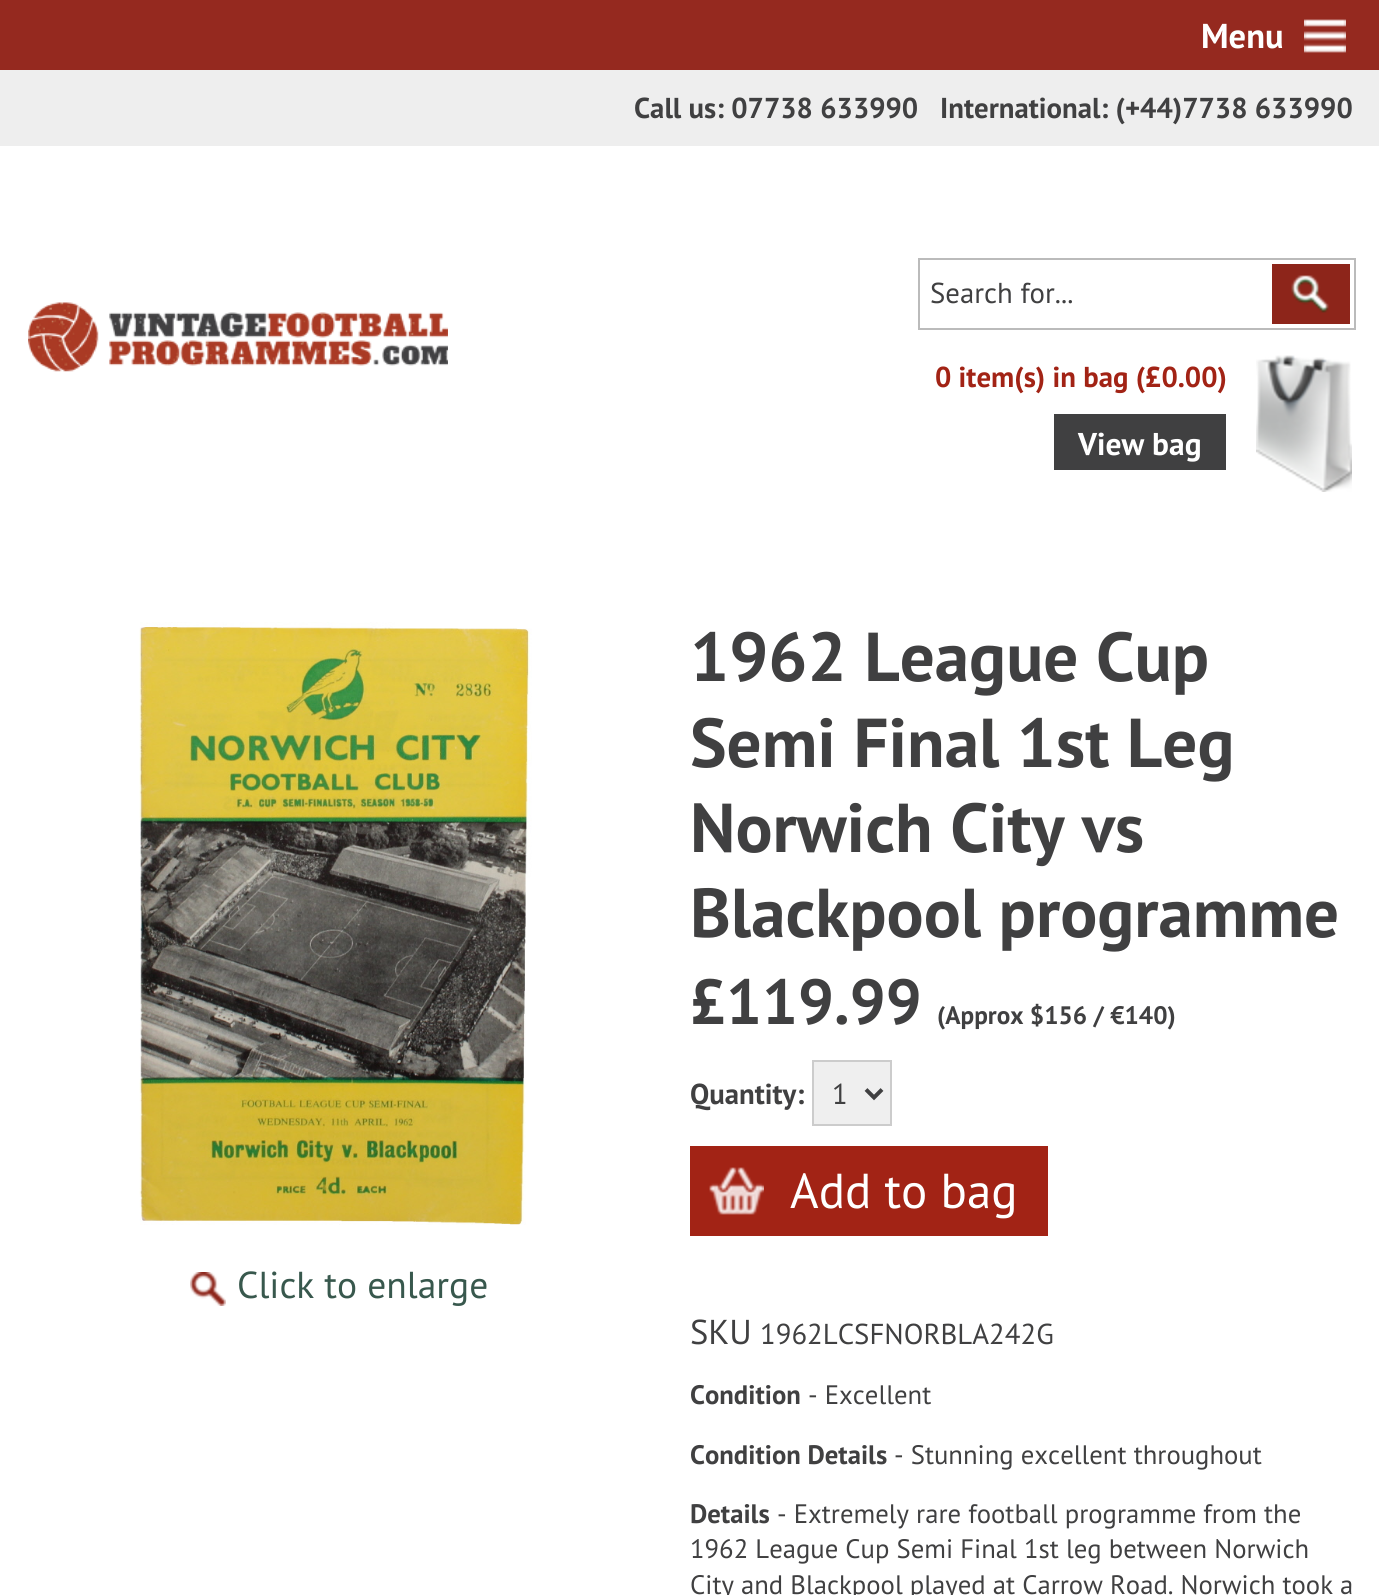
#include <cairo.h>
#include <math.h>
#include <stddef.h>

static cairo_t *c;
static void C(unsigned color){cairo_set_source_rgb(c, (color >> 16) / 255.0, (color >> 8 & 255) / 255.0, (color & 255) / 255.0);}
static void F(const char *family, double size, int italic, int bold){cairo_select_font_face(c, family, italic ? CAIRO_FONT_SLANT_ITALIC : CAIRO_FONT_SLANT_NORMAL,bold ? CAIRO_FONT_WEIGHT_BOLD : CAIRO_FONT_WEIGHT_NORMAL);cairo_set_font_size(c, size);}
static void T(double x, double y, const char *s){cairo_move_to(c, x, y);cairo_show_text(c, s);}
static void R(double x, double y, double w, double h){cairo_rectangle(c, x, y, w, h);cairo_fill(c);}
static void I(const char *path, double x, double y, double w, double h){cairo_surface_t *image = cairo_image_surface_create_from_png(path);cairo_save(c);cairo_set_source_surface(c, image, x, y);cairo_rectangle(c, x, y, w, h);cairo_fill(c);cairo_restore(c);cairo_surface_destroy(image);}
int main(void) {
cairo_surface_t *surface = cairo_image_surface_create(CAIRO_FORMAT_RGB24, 1379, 1595);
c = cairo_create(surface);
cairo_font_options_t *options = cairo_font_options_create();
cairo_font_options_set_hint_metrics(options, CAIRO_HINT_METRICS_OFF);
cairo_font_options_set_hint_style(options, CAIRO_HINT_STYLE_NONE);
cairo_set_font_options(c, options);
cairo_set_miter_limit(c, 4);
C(0xffffff);
cairo_paint(c);
C(0x95291f);
R(0,0,1379,70);
F("PT Sans",34.5,0,1);
C(0xffffff);
T(1201,48,"Menu");
I("1.png",1304,19,42,34);
C(0xeeeeee);
R(0,70,1379,76);
F("PT Sans",28.8,0,1);
C(0x404041);
T(634,118,"Call us: 07738 633990   International: (+44)7738 633990");
I("2.png",28,302,420,70);
cairo_rectangle(c,919,259,436,70);
C(0xbbbbbb);
cairo_stroke(c);
F("PT Sans",28.8,0,0);
C(0x404041);
T(930,303,"Search for...");
I("3.png",1272,264,78,60);
I("4.png",1256,355,96,137);
F("PT Sans",28.8,0,1);
C(0xa22315);
T(935,387,"0 item(s) in bag (£0.00)");
C(0x404041);
R(1054,414,172,56);
F("PT Sans",31.5,0,1);
C(0xffffff);
T(1078,455,"View bag");
I("5.png",139,622,393,603);
I("6.png",190,1272,36,34);
F("PT Sans",37.5,0,0);
C(0x38584d);
T(237,1298,"Click to enlarge");
F("PT Sans",69.1,0,1);
C(0x404041);
T(690,681,"1962 League Cup");
T(690,767,"Semi Final 1st Leg");
T(690,852,"Norwich City vs");
T(690,937,"Blackpool programme");
F("PT Sans",63.5,0,1);
T(690,1024,"£119.99");
F("PT Sans",25.25,0,1);
T(937,1024,"(Approx $156 / €140)");
F("PT Sans",28.8,0,1);
T(690,1104,"Quantity:");
C(0xefefef);
cairo_rectangle(c,813,1061,78,64);
cairo_fill_preserve(c);
C(0xcccccc);
cairo_stroke(c);
cairo_new_path(c);
cairo_move_to(c,866,1089.5);
cairo_line_to(c,874,1097.5);
cairo_line_to(c,882,1089.5);
C(0x404041);
cairo_set_line_width(c,4);
cairo_stroke(c);
F("PT Sans",28.8,0,0);
T(832,1104,"1");
C(0xa22315);
R(690,1146,358,90);
I("7.png",709,1167,55,48);
F("PT Sans",49,0,0);
C(0xffffff);
T(790,1208,"Add to bag");
F("PT Sans",34.5,0,0);
C(0x404041);
T(690,1344,"SKU");
F("PT Sans",28.8,0,0);
T(760,1344,"1962LCSFNORBLA242G");
F("PT Sans",26.7,0,1);
T(690,1404,"Condition");
F("PT Sans",26.7,0,0);
T(808,1404,"- Excellent");
F("PT Sans",26.7,0,1);
T(690,1464,"Condition Details");
F("PT Sans",26.7,0,0);
T(894,1464,"- Stunning excellent throughout");
F("PT Sans",26.7,0,1);
T(690,1523,"Details");
F("PT Sans",26.7,0,0);
T(777,1523,"- Extremely rare football programme from the");
T(690,1558,"1962 League Cup Semi Final 1st leg between Norwich");
T(690,1594,"City and Blackpool played at Carrow Road. Norwich took a");
cairo_surface_write_to_png(surface, "o.png");
cairo_font_options_destroy(options);
cairo_destroy(c);
cairo_surface_destroy(surface);
return 0;
}
